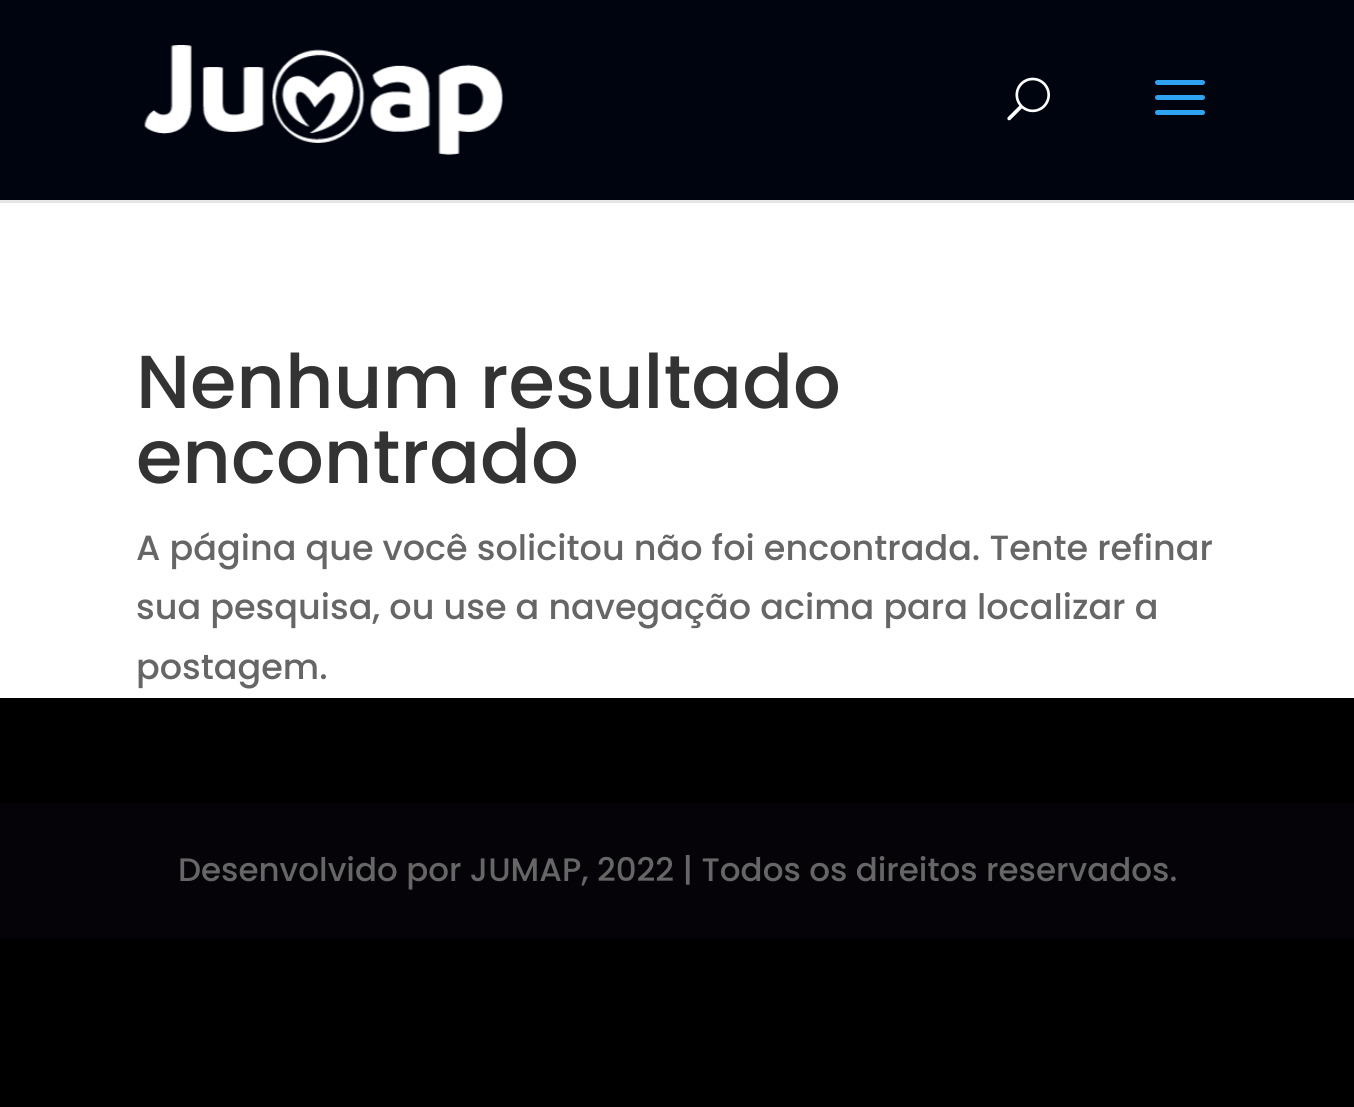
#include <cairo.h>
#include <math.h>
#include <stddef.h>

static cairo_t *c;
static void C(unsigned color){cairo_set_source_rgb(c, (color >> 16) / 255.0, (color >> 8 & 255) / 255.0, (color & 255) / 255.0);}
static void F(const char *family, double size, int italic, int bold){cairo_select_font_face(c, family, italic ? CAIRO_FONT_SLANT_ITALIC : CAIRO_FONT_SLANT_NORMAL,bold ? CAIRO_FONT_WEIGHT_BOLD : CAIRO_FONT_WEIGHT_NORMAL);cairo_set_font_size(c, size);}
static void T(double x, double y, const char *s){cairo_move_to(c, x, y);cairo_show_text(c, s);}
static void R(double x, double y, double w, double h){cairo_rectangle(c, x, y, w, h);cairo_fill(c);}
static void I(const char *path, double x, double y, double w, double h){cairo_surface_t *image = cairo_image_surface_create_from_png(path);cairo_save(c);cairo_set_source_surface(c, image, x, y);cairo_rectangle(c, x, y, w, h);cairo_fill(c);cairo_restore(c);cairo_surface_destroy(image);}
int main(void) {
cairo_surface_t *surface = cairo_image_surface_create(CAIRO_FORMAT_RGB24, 1354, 1107);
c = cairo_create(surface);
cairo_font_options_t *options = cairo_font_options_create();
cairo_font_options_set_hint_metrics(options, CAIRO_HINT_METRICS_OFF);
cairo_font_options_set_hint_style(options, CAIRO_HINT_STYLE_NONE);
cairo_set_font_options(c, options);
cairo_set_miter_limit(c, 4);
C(0x000000);
cairo_paint(c);
C(0xe6e6e6);
R(0,200,1354,3);
C(0x00040f);
R(0,0,1354,200);
I("1.png",144,45,359,110);
I("2.png",1007,77,43,44);
I("3.png",1155,80,50,35);
C(0xffffff);
R(0,203,1354,495);
F("Poppins Medium",75,0,0);
C(0x333333);
T(136,408,"Nenhum resultado");
T(136,483,"encontrado");
F("Poppins Medium",35,0,0);
C(0x666666);
T(136,560,"A página que você solicitou não foi encontrada. Tente refinar");
T(136,619,"sua pesquisa, ou use a navegação acima para localizar a");
T(136,679,"postagem.");
C(0x050308);
R(0,803,1354,135);
F("Poppins Medium",32.5,0,0);
C(0x666666);
T(178,881,"Desenvolvido por JUMAP, 2022 | Todos os direitos reservados.");
cairo_surface_write_to_png(surface, "o.png");
cairo_font_options_destroy(options);
cairo_destroy(c);
cairo_surface_destroy(surface);
return 0;
}
